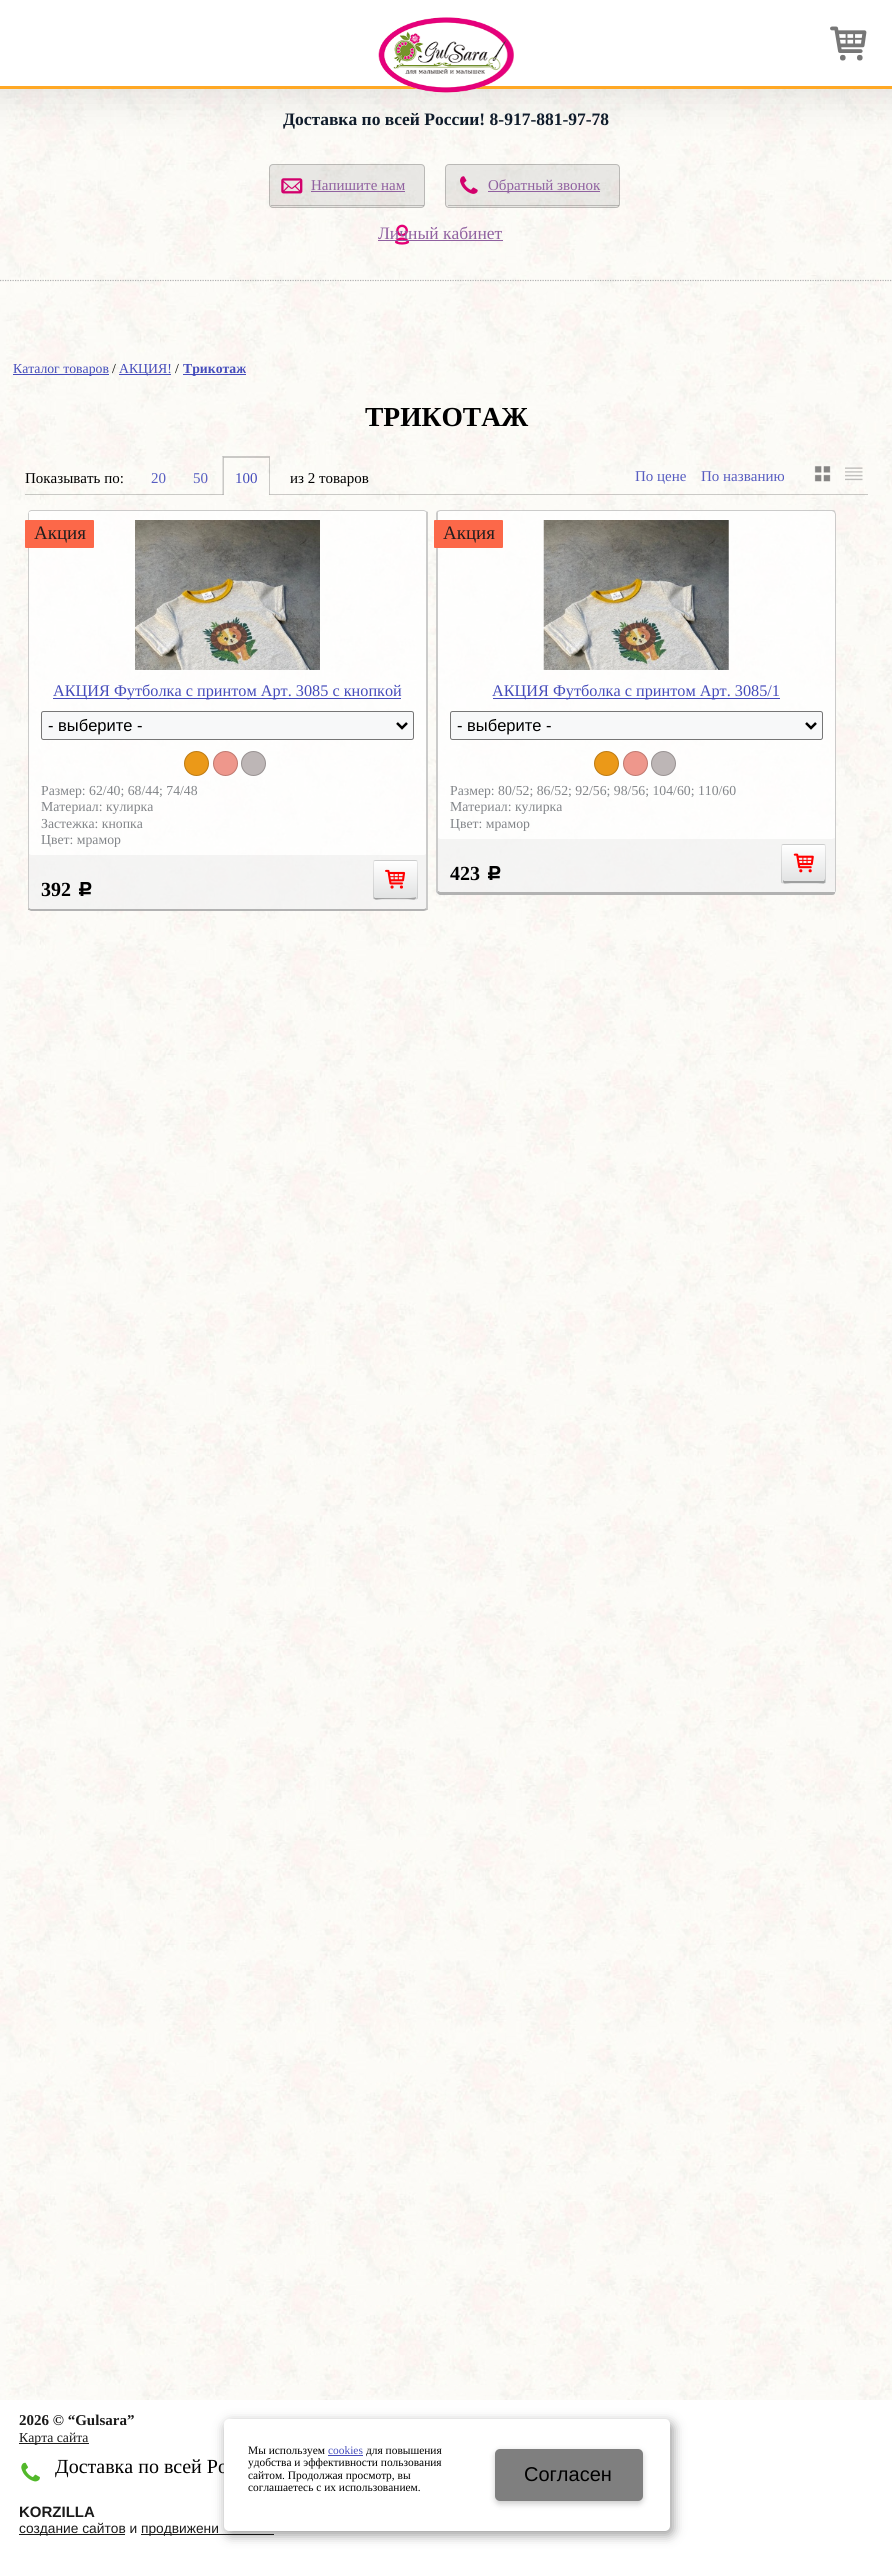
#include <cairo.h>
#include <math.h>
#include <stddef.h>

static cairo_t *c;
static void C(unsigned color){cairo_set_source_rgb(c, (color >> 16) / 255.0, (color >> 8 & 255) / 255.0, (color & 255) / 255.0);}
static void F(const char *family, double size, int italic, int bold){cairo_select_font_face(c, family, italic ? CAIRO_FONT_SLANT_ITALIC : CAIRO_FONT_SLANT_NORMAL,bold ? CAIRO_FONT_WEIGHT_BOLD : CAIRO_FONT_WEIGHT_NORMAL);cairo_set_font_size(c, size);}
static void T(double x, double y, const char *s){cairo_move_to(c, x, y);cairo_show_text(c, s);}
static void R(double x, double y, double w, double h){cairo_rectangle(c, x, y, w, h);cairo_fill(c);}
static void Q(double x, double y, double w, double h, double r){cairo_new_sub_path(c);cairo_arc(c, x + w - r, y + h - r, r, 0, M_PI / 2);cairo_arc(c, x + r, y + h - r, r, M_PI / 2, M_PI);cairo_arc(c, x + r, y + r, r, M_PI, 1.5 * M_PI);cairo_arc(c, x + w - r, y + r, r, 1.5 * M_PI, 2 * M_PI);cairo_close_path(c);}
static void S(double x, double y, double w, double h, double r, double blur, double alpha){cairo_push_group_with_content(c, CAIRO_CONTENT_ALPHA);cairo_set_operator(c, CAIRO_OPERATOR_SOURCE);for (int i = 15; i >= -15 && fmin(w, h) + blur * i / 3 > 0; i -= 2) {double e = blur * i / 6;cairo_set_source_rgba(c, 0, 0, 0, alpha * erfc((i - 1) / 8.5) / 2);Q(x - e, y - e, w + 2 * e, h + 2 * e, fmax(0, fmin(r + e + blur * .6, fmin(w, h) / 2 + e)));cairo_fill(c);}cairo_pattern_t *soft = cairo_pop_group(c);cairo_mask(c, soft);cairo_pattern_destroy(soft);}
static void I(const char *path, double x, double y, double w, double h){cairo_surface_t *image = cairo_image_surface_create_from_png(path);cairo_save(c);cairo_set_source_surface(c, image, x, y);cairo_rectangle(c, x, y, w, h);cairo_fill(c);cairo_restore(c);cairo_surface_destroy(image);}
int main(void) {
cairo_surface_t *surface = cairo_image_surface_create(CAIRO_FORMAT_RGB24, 892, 2549);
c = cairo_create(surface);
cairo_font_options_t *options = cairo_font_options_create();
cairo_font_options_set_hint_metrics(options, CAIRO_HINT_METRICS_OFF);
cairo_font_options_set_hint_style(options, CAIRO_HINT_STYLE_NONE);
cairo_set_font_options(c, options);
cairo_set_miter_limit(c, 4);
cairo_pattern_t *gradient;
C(0xffffff);
cairo_paint(c);
I("1.png",0,89,892,2311);
C(0x000000);
S(-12,-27,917,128,0,19,.09);
C(0xffffff);
R(0,0,892,86);
C(0xffa824);
R(0,86,892,3);
I("2.png",378,17,136,76);
I("3.png",830,26,37,35);
cairo_new_path(c);
cairo_move_to(c,0,280.5);
cairo_line_to(c,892.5,280.5);
C(0xb2b2b2);
cairo_set_line_width(c,1.2);
cairo_set_dash(c,(double[]){1.25,1.25},2,0);
cairo_stroke(c);
F("Liberation Serif",17.5,0,1);
C(0x101c2b);
T(283,125,"Доставка по всей России! 8-917-881-97-78");
I("4.png",281,178,22,16);
cairo_set_source_rgba(c,0,0,0,0.08);
Q(269,164,156,44,4);
cairo_fill(c);
Q(269.5,164.5,155,43,3.5);
cairo_set_source_rgba(c,0,0,0,0.2);
cairo_set_line_width(c,1);
cairo_set_dash(c,NULL,0,0);
cairo_stroke(c);
F("Liberation Serif",15,0,0);
C(0x9061a0);
T(311,190,"Напишите нам");
cairo_set_source_rgba(c,0,0,0,0.2);
R(271,205,153,1);
C(0x9061a0);
R(311,191,94,1);
I("5.png",460,176,18,18);
cairo_set_source_rgba(c,0,0,0,0.08);
Q(445,164,175,44,4);
cairo_fill(c);
Q(445.5,164.5,174,43,3.5);
cairo_set_source_rgba(c,0,0,0,0.2);
cairo_stroke(c);
C(0x9061a0);
R(488,191,112,1);
T(488,190,"Обратный звонок");
cairo_set_source_rgba(c,0,0,0,0.2);
R(448,205,171,1);
I("6.png",395,224,15,21);
F("Liberation Serif",17.5,0,0);
C(0x9061a0);
T(378,239,"Личный кабинет");
R(378,240,125,1);
C(0x454cbb);
R(13,374,96,1);
F("Liberation Serif",13.75,0,0);
T(13,373,"Каталог товаров");
C(0x000000);
T(112,373,"/");
C(0x454cbb);
R(119,374,52,1);
T(119,373,"АКЦИЯ!");
C(0x000000);
T(175,373,"/");
C(0x454cbb);
R(183,374,63,1);
F("Liberation Serif",13.75,0,1);
T(183,373,"Трикотаж");
F("Liberation Serif",27.5,0,1);
C(0x000000);
T(365,426,"ТРИКОТАЖ");
F("Liberation Serif",15,0,0);
T(25,483,"Показывать по:");
C(0x575dc1);
T(151,483,"20");
T(193,483,"50");
cairo_set_source_rgba(c,0,0,0,0.2);
cairo_new_path(c);
cairo_move_to(c,222,456);
cairo_line_to(c,270,456);
cairo_line_to(c,269,458);
cairo_line_to(c,224,458);
cairo_close_path(c);
cairo_fill(c);
cairo_new_path(c);
cairo_move_to(c,270,456);
cairo_line_to(c,270,495);
cairo_line_to(c,269,494);
cairo_line_to(c,269,457.5);
cairo_close_path(c);
cairo_move_to(c,222.5,495);
cairo_line_to(c,222.5,456);
cairo_line_to(c,224,457.5);
cairo_line_to(c,224,494);
cairo_close_path(c);
cairo_fill(c);
C(0x454cbb);
T(235,483,"100");
cairo_set_source_rgba(c,0,0,0,0.2);
R(25,494,199,1);
R(269,494,599,1);
C(0x000000);
T(290,483,"из 2 товаров");
C(0x575dc1);
T(635,481,"По цене");
T(701,481,"По названию");
I("7.png",814,466,17,16);
I("8.png",845,467,18,14);
cairo_set_source_rgba(c,1,1,1,0.8);
Q(28,510,400,401,4);
cairo_fill(c);
cairo_set_source_rgba(c,0,0,0,0.04);
cairo_new_path(c);
cairo_move_to(c,29,513);
cairo_line_to(c,29,908);
cairo_curve_to(c,29,908,30,909,31,909);
cairo_line_to(c,424,909);
cairo_curve_to(c,425,909,426,908,426,908);
cairo_line_to(c,426,513);
cairo_line_to(c,426,854);
cairo_line_to(c,424,855);
cairo_line_to(c,31,855);
cairo_line_to(c,29,854);
cairo_close_path(c);
cairo_fill(c);
cairo_set_source_rgba(c,0,0,0,0.2);
cairo_new_path(c);
cairo_move_to(c,428,910);
cairo_line_to(c,427,910);
cairo_line_to(c,426,908);
cairo_line_to(c,426,514);
cairo_line_to(c,426,512);
cairo_line_to(c,426,511);
cairo_line_to(c,428,512);
cairo_close_path(c);
cairo_fill(c);
cairo_set_source_rgba(c,0,0,0,0.3);
cairo_new_path(c);
cairo_move_to(c,427,910);
cairo_line_to(c,424,911);
cairo_line_to(c,31,911);
cairo_line_to(c,29,910);
cairo_line_to(c,28,910);
cairo_line_to(c,29,908);
cairo_curve_to(c,29,908,30,909,31,909);
cairo_line_to(c,424,909);
cairo_curve_to(c,425,909,426,908,426,908);
cairo_close_path(c);
cairo_fill(c);
cairo_set_source_rgba(c,0,0,0,0.2);
cairo_new_path(c);
cairo_move_to(c,29,511);
cairo_line_to(c,28,514);
cairo_line_to(c,28,910);
cairo_line_to(c,29,908);
cairo_line_to(c,29,514);
cairo_line_to(c,29,512);
cairo_close_path(c);
cairo_fill(c);
C(0xfc6849);
Q(25,520,69,28,1);
cairo_fill(c);
F("Liberation Serif",19,0,0);
C(0x211e1e);
T(34,539,"Акция");
cairo_set_source_rgba(c,0,0,0,0.2);
cairo_new_path(c);
cairo_move_to(c,31,510);
cairo_line_to(c,29,511);
cairo_line_to(c,29,512);
cairo_line_to(c,31,511);
cairo_line_to(c,424,511);
cairo_line_to(c,426,512);
cairo_line_to(c,426,511);
cairo_line_to(c,424,510);
cairo_close_path(c);
cairo_fill(c);
I("9.png",135,520,185,150);
C(0x454cbb);
R(53,698,348,1);
F("Liberation Serif",16.25,0,0);
T(53,696,"АКЦИЯ Футболка с принтом Арт. 3085 с кнопкой");
C(0xf7f8f9);
Q(41.5,711.5,372,28,2);
cairo_fill_preserve(c);
C(0x767676);
cairo_stroke(c);
cairo_new_path(c);
cairo_move_to(c,397,723);
cairo_line_to(c,402,728);
cairo_line_to(c,407,723);
C(0x000000);
cairo_set_line_width(c,2.5);
cairo_stroke(c);
F("Liberation Sans",16.5,0,0);
T(48,731,"- выберите -");
C(0xeb9918);
cairo_new_path(c);
cairo_arc(c,196.5,763.5,12.5,0,2 * M_PI);
cairo_fill(c);
cairo_arc(c,196.5,763.5,12,0,2 * M_PI);
cairo_set_source_rgba(c,0,0,0,0.2);
cairo_set_line_width(c,1);
cairo_stroke(c);
C(0xee978c);
cairo_arc(c,225.5,763.5,12.5,0,2 * M_PI);
cairo_fill(c);
cairo_arc(c,225.5,763.5,12,0,2 * M_PI);
cairo_set_source_rgba(c,0,0,0,0.2);
cairo_stroke(c);
C(0xbdb6b6);
cairo_arc(c,253.5,763.5,12.5,0,2 * M_PI);
cairo_fill(c);
cairo_arc(c,253.5,763.5,12,0,2 * M_PI);
cairo_set_source_rgba(c,0,0,0,0.2);
cairo_stroke(c);
F("Liberation Serif",13.75,0,0);
C(0x828589);
T(41,795,"Размер: 62/40; 68/44; 74/48");
T(41,811,"Материал: кулирка");
T(41,828,"Застежка: кнопка");
T(41,844,"Цвет: мрамор");
F("Liberation Serif",20,0,1);
C(0x000000);
T(41,896,"392");
F("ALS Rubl",20,0,0);
T(76,896,"c");
cairo_save(c);
Q(373,860,45,40,2.5);
cairo_clip(c);
gradient = cairo_pattern_create_linear(395,861,395,824);
cairo_pattern_add_color_stop_rgba(gradient,0,0.882,0.886,0.886,1);
cairo_pattern_add_color_stop_rgba(gradient,1,1,1,1,1);
cairo_set_source(c,gradient);
cairo_pattern_destroy(gradient);
R(373,860,45,1);
gradient = cairo_pattern_create_linear(395,899,395,861);
cairo_pattern_add_color_stop_rgba(gradient,0,0.882,0.886,0.886,1);
cairo_pattern_add_color_stop_rgba(gradient,1,1,1,1,1);
cairo_set_source(c,gradient);
cairo_pattern_destroy(gradient);
R(373,861,45,38);
gradient = cairo_pattern_create_linear(395,936,395,899);
cairo_pattern_add_color_stop_rgba(gradient,0,0.882,0.886,0.886,1);
cairo_pattern_add_color_stop_rgba(gradient,1,1,1,1,1);
cairo_set_source(c,gradient);
cairo_pattern_destroy(gradient);
R(373,899,45,1);
cairo_restore(c);
C(0x9e9e9e);
cairo_new_path(c);
cairo_move_to(c,374,897);
cairo_curve_to(c,374,901,378,899,382,899);
cairo_line_to(c,408,899);
cairo_curve_to(c,412,899,416,901,416,897);
cairo_curve_to(c,415,899,383,898,375,898);
cairo_close_path(c);
cairo_fill(c);
Q(373.5,860.5,44,39,2);
cairo_set_source_rgba(c,0,0,0,0.1);
cairo_stroke(c);
I("10.png",385,869,21,20);
cairo_set_source_rgba(c,1,1,1,0.8);
Q(436,510,400,385,4);
cairo_fill(c);
cairo_set_source_rgba(c,0,0,0,0.2);
cairo_new_path(c);
cairo_move_to(c,440,510);
cairo_line_to(c,437,511);
cairo_line_to(c,438,512);
cairo_line_to(c,440,511);
cairo_line_to(c,832,511);
cairo_line_to(c,834,512);
cairo_line_to(c,835,511);
cairo_curve_to(c,834,510,833,510,832,510);
cairo_close_path(c);
cairo_fill(c);
cairo_set_source_rgba(c,0,0,0,0.04);
cairo_new_path(c);
cairo_move_to(c,438,512);
cairo_line_to(c,438,514);
cairo_line_to(c,438,891);
cairo_curve_to(c,438,892,439,892,440,892);
cairo_line_to(c,832,892);
cairo_curve_to(c,834,892,835,892,835,891);
cairo_line_to(c,835,838);
cairo_line_to(c,832,839);
cairo_line_to(c,440,839);
cairo_line_to(c,438,838);
cairo_close_path(c);
cairo_fill(c);
cairo_set_source_rgba(c,0,0,0,0.2);
cairo_new_path(c);
cairo_move_to(c,835,511);
cairo_line_to(c,836,514);
cairo_line_to(c,836,891);
cairo_line_to(c,835,893);
cairo_line_to(c,835,892);
cairo_line_to(c,835,514);
cairo_line_to(c,834,512);
cairo_close_path(c);
cairo_fill(c);
cairo_set_source_rgba(c,0,0,0,0.3);
cairo_new_path(c);
cairo_move_to(c,440,895);
cairo_line_to(c,832,895);
cairo_curve_to(c,834,895,835,894,835,893);
cairo_line_to(c,835,892);
cairo_line_to(c,440,892);
cairo_line_to(c,438,891);
cairo_line_to(c,437,893);
cairo_curve_to(c,438,894,439,895,440,895);
cairo_close_path(c);
cairo_fill(c);
cairo_set_source_rgba(c,0,0,0,0.2);
cairo_new_path(c);
cairo_move_to(c,436,513);
cairo_line_to(c,437,511);
cairo_line_to(c,438,512);
cairo_line_to(c,438,514);
cairo_line_to(c,438,891);
cairo_line_to(c,437,893);
cairo_line_to(c,436,892);
cairo_close_path(c);
cairo_fill(c);
C(0xfc6849);
Q(434,520,69,28,1);
cairo_fill(c);
F("Liberation Serif",19,0,0);
C(0x211e1e);
T(443,539,"Акция");
I("11.png",543,520,186,150);
C(0x454cbb);
R(493,698,287,1);
F("Liberation Serif",16.25,0,0);
T(492,696,"АКЦИЯ Футболка с принтом Арт. 3085/1");
C(0xf7f8f9);
Q(450.5,711.5,372,28,2);
cairo_fill_preserve(c);
C(0x767676);
cairo_stroke(c);
cairo_new_path(c);
cairo_move_to(c,806,723);
cairo_line_to(c,811,728);
cairo_line_to(c,816,723);
C(0x000000);
cairo_set_line_width(c,2.5);
cairo_stroke(c);
F("Liberation Sans",16.5,0,0);
T(457,731,"- выберите -");
C(0xeb9918);
cairo_new_path(c);
cairo_arc(c,606.5,763.5,12.5,0,2 * M_PI);
cairo_fill(c);
cairo_arc(c,606.5,763.5,12,0,2 * M_PI);
cairo_set_source_rgba(c,0,0,0,0.2);
cairo_set_line_width(c,1);
cairo_stroke(c);
C(0xee978c);
cairo_arc(c,635.5,763.5,12.5,0,2 * M_PI);
cairo_fill(c);
cairo_arc(c,635.5,763.5,12,0,2 * M_PI);
cairo_set_source_rgba(c,0,0,0,0.2);
cairo_stroke(c);
C(0xbdb6b6);
cairo_arc(c,663.5,763.5,12.5,0,2 * M_PI);
cairo_fill(c);
cairo_arc(c,663.5,763.5,12,0,2 * M_PI);
cairo_set_source_rgba(c,0,0,0,0.2);
cairo_stroke(c);
F("Liberation Serif",13.75,0,0);
C(0x828589);
T(450,795,"Размер: 80/52; 86/52; 92/56; 98/56; 104/60; 110/60");
T(450,811,"Материал: кулирка");
T(450,828,"Цвет: мрамор");
F("Liberation Serif",20,0,1);
C(0x000000);
T(450,880,"423");
F("ALS Rubl",20,0,0);
T(485,880,"c");
cairo_save(c);
Q(781,844,45,40,2.5);
cairo_clip(c);
gradient = cairo_pattern_create_linear(804,845,804,808);
cairo_pattern_add_color_stop_rgba(gradient,0,0.882,0.886,0.886,1);
cairo_pattern_add_color_stop_rgba(gradient,1,1,1,1,1);
cairo_set_source(c,gradient);
cairo_pattern_destroy(gradient);
R(781,844,45,1);
gradient = cairo_pattern_create_linear(804,883,804,845);
cairo_pattern_add_color_stop_rgba(gradient,0,0.882,0.886,0.886,1);
cairo_pattern_add_color_stop_rgba(gradient,1,1,1,1,1);
cairo_set_source(c,gradient);
cairo_pattern_destroy(gradient);
R(781,845,45,38);
gradient = cairo_pattern_create_linear(804,920,804,883);
cairo_pattern_add_color_stop_rgba(gradient,0,0.882,0.886,0.886,1);
cairo_pattern_add_color_stop_rgba(gradient,1,1,1,1,1);
cairo_set_source(c,gradient);
cairo_pattern_destroy(gradient);
R(781,883,45,1);
cairo_restore(c);
C(0x9e9f9f);
cairo_new_path(c);
cairo_move_to(c,783,880);
cairo_curve_to(c,783,885,785,883,791,883);
cairo_line_to(c,817,883);
cairo_curve_to(c,825,883,825,885,825,879);
cairo_line_to(c,824,881);
cairo_line_to(c,784,881);
cairo_close_path(c);
cairo_fill(c);
Q(781.5,844.5,44,39,2);
cairo_set_source_rgba(c,0,0,0,0.1);
cairo_stroke(c);
I("12.png",793,853,21,20);
F("Liberation Serif",15,0,1);
C(0x1a1a1a);
T(19,2425,"2026 © “Gulsara”");
R(19,2443,70,1);
F("Liberation Serif",13.75,0,0);
T(19,2442,"Карта сайта");
I("13.png",21,2462,19,20);
F("Liberation Serif",20,0,0);
C(0x000000);
T(55,2473,"Доставка по всей Ро");
F("Liberation Sans",15,0,1);
C(0x1a1a1a);
T(19,2517,"KORZILLA");
R(19,2534,106,1);
F("Liberation Sans",13.75,0,0);
T(19,2533,"создание сайтов и");
R(141,2534,133,1);
T(141,2533,"продвижени");
C(0x000000);
S(226,2423,447,112,5,6,.4);
C(0xffffff);
Q(224,2419,446,112,5);
cairo_fill(c);
F("Liberation Serif",11.4,0,0);
C(0x000000);
T(248,2454,"Мы используем");
C(0x454cbb);
T(328,2454,"cookies");
R(328,2455,35,1);
C(0x000000);
T(366,2454,"для повышения");
T(248,2466,"удобства и эффективности пользования");
T(248,2479,"сайтом. Продолжая просмотр, вы");
T(248,2491,"соглашаетесь с их использованием.");
C(0x000000);
S(495,2451,148,53,5,3,.2);
C(0x7f7f7f);
Q(495,2449,148,52,5);
cairo_fill(c);
F("Liberation Sans",20,0,0);
C(0x000000);
T(524,2481,"Cогласен");
cairo_surface_write_to_png(surface, "o.png");
cairo_font_options_destroy(options);
cairo_destroy(c);
cairo_surface_destroy(surface);
return 0;
}
